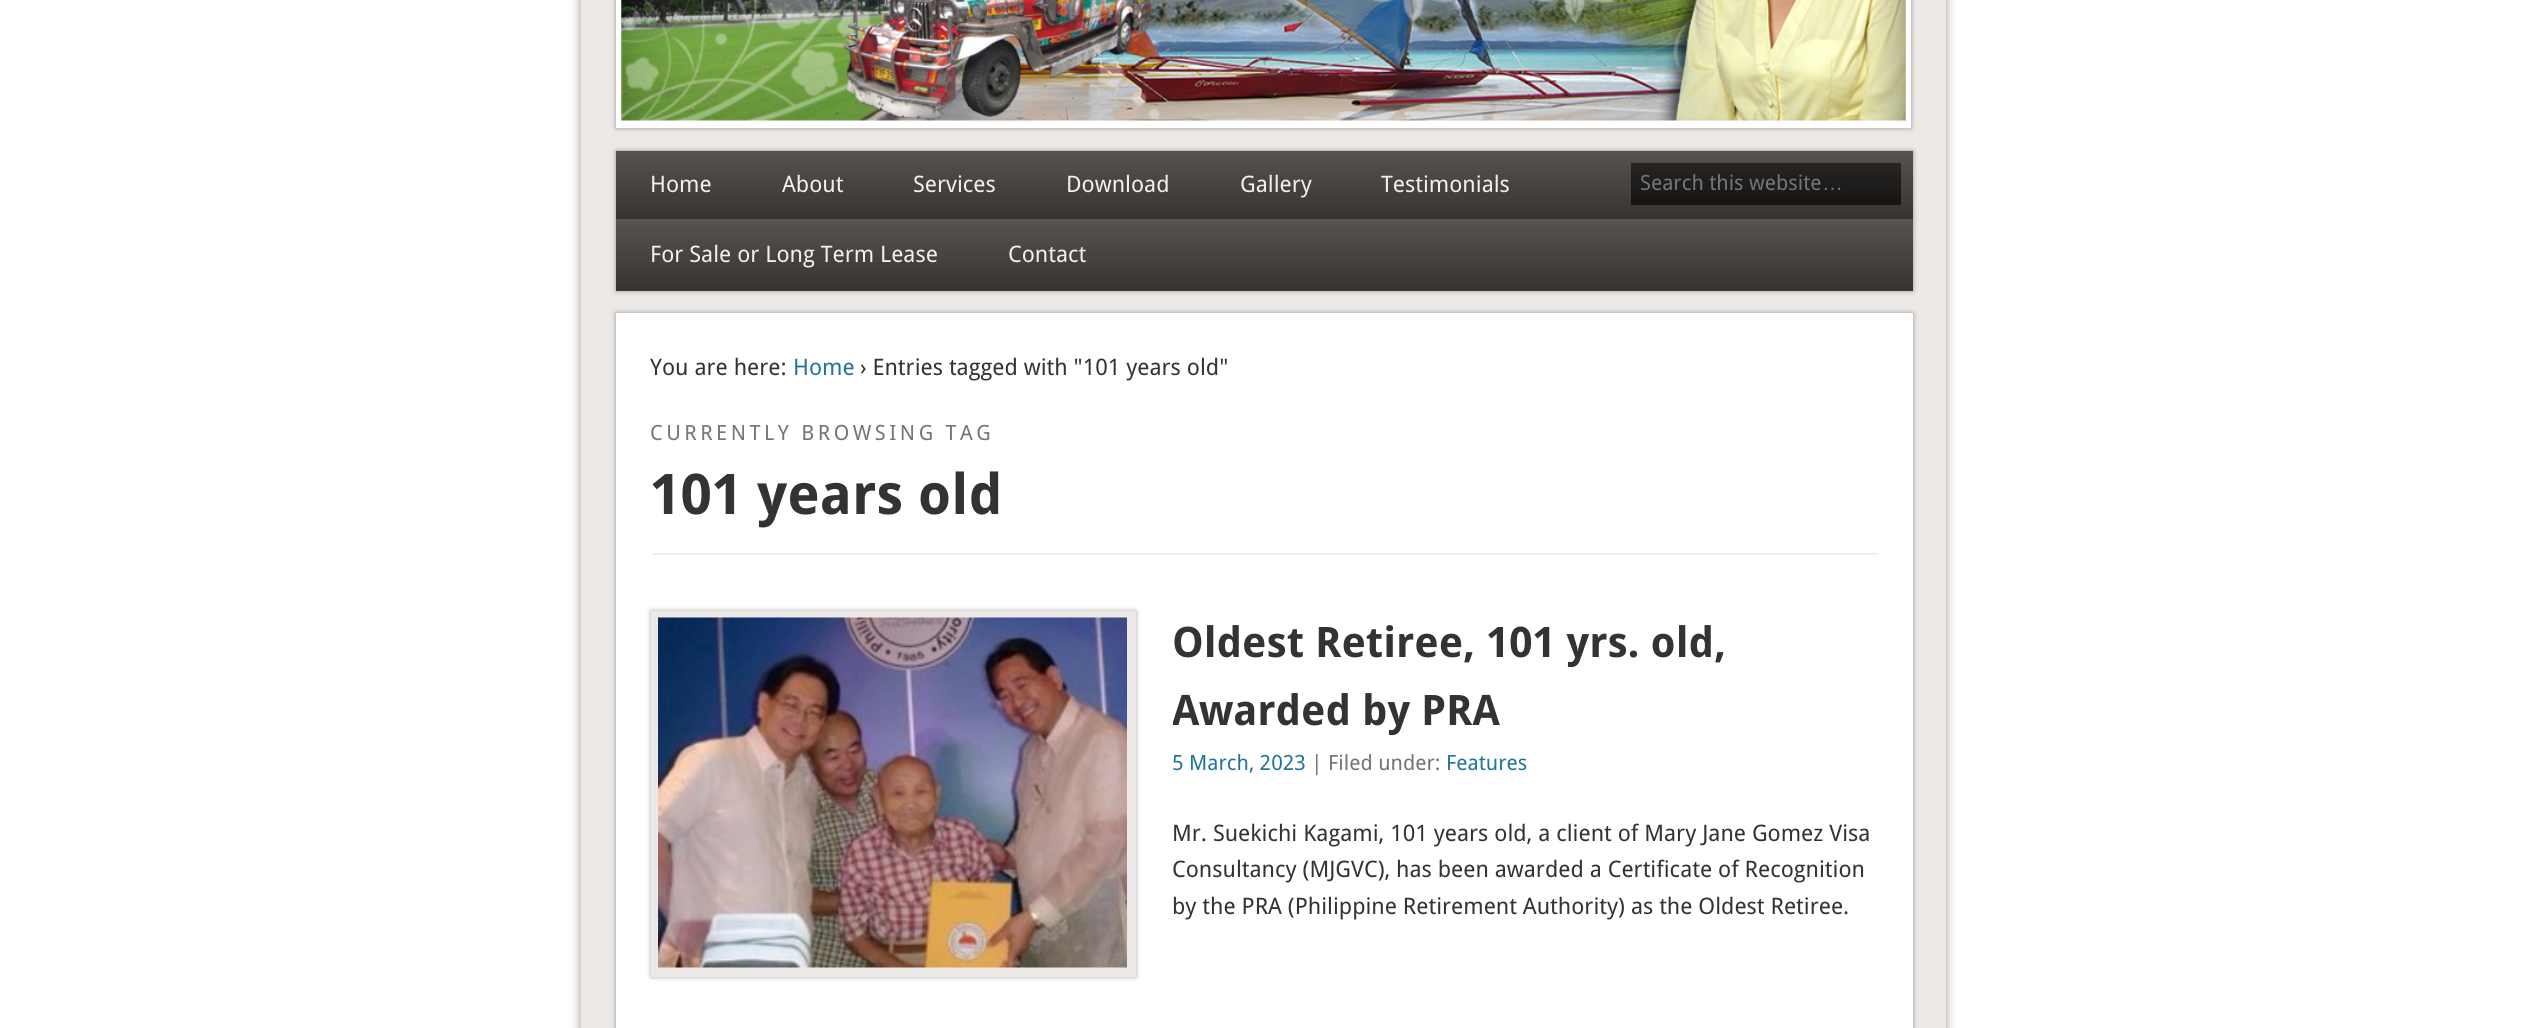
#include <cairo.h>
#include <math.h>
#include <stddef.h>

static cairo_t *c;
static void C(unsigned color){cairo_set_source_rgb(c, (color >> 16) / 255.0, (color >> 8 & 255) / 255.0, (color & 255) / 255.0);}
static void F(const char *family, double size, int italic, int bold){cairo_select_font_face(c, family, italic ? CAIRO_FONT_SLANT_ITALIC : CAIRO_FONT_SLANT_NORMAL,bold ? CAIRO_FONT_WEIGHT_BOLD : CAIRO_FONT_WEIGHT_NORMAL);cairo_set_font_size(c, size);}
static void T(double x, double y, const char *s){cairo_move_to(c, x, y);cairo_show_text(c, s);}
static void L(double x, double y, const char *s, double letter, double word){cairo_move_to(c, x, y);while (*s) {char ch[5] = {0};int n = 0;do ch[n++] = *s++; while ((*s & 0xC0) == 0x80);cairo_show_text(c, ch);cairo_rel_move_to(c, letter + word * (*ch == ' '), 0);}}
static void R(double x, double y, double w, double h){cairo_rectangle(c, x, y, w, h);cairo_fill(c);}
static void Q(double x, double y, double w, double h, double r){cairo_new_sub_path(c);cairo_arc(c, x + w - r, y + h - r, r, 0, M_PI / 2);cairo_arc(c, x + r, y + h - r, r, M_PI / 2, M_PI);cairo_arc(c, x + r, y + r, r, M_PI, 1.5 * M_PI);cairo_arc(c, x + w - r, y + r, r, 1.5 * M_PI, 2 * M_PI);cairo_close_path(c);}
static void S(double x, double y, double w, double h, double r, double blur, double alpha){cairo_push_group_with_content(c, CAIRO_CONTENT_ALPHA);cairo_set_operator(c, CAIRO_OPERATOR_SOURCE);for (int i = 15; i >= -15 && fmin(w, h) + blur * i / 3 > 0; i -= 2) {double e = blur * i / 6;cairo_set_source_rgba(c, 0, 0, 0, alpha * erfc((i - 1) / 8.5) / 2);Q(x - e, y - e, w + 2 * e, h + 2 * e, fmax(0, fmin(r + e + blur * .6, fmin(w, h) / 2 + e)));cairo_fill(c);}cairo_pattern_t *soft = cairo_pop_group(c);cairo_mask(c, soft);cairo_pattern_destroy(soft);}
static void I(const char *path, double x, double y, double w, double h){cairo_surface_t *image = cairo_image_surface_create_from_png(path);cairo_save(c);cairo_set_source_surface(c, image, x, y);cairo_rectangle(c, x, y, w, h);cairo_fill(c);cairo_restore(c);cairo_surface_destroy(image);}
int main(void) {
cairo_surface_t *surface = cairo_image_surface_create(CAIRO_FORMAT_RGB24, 2527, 1028);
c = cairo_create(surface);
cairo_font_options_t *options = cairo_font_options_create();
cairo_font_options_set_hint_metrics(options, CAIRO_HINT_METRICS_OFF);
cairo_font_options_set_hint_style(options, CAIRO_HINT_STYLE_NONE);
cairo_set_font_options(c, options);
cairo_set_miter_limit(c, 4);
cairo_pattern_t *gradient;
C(0xffffff);
cairo_paint(c);
C(0x999999);
S(581,-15,1365,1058,0,5,1);
C(0xece9e6);
R(581,0,1365,1028);
C(0x999999);
S(616,-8,1295,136,0,2.5,1);
C(0xffffff);
R(616,0,1295,128);
I("1.png",621,0,1285,121);
C(0x999999);
S(616,151,1297,140,0,2.5,1);
gradient = cairo_pattern_create_linear(1264,150,1264,360);
cairo_pattern_add_color_stop_rgba(gradient,0,0.341,0.329,0.314,1);
cairo_pattern_add_color_stop_rgba(gradient,.33,0.216,0.204,0.188,1);
cairo_pattern_add_color_stop_rgba(gradient,.33,0.341,0.329,0.314,1);
cairo_pattern_add_color_stop_rgba(gradient,.67,0.216,0.204,0.188,1);
cairo_pattern_add_color_stop_rgba(gradient,.67,0.341,0.329,0.314,1);
cairo_pattern_add_color_stop_rgba(gradient,1,0.216,0.204,0.188,1);
cairo_set_source(c,gradient);
cairo_pattern_destroy(gradient);
R(616,151,1297,140);
F("Droid Sans",22.75,0,0);
C(0xf0f0f0);
T(650,192,"Home");
T(782,192,"About");
T(913,192,"Services");
T(1066,192,"Download");
T(1240,192,"Gallery");
T(1381,192,"Testimonials");
T(650,262,"For Sale or Long Term Lease");
T(1008,262,"Contact");
gradient = cairo_pattern_create_linear(1766,163,1766,205);
cairo_pattern_add_color_stop_rgba(gradient,0,0.153,0.145,0.137,1);
cairo_pattern_add_color_stop_rgba(gradient,1,0.09,0.082,0.075,1);
cairo_set_source(c,gradient);
cairo_pattern_destroy(gradient);
R(1631,163,270,42);
F("Droid Sans",21,0,0);
C(0x757575);
T(1640,190,"Search this website");
F("Liberation Sans",21,0,0);
T(1822,190,"…");
C(0x999999);
S(616,313,1297,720,0,2.5,1);
C(0xffffff);
R(616,313,1297,715);
F("Droid Sans",22.75,0,0);
C(0x333333);
T(650,375,"You are here:");
C(0x21759b);
T(793,375,"Home");
C(0x333333);
T(860,375,"› Entries tagged with \"101 years old\"");
F("Droid Sans",21,0,0);
C(0x757575);
L(650,440,"CURRENTLY BROWSING TAG",3.5,0);
F("Droid Sans",56,0,1);
C(0x333333);
T(650,514,"101 years old");
C(0xf3efec);
R(651,553,1227,2);
C(0xaaaaaa);
S(651,611,485,366,0,2.5,1);
C(0xece9e6);
R(651,611,485,366);
I("2.png",658,617,469,351);
F("Droid Sans",42,0,1);
C(0x333333);
T(1172,657,"Oldest Retiree, 101 yrs. old,");
cairo_save(c);
cairo_rectangle(c,1173,611,705,135);
cairo_clip(c);
T(1172,725,"Awarded by PRA");
cairo_restore(c);
F("Droid Sans",21,0,0);
C(0x21759b);
T(1172,770,"5 March, 2023");
C(0x757575);
T(1311,770,"| Filed under:");
C(0x21759b);
T(1446,770,"Features");
F("Droid Sans",22.75,0,0);
C(0x333333);
T(1172,841,"Mr. Suekichi Kagami, 101 years old, a client of Mary Jane Gomez Visa");
T(1172,877,"Consultancy (MJGVC), has been awarded a Certificate of Recognition");
T(1172,914,"by the PRA (Philippine Retirement Authority) as the Oldest Retiree.");
cairo_surface_write_to_png(surface, "o.png");
cairo_font_options_destroy(options);
cairo_destroy(c);
cairo_surface_destroy(surface);
return 0;
}
